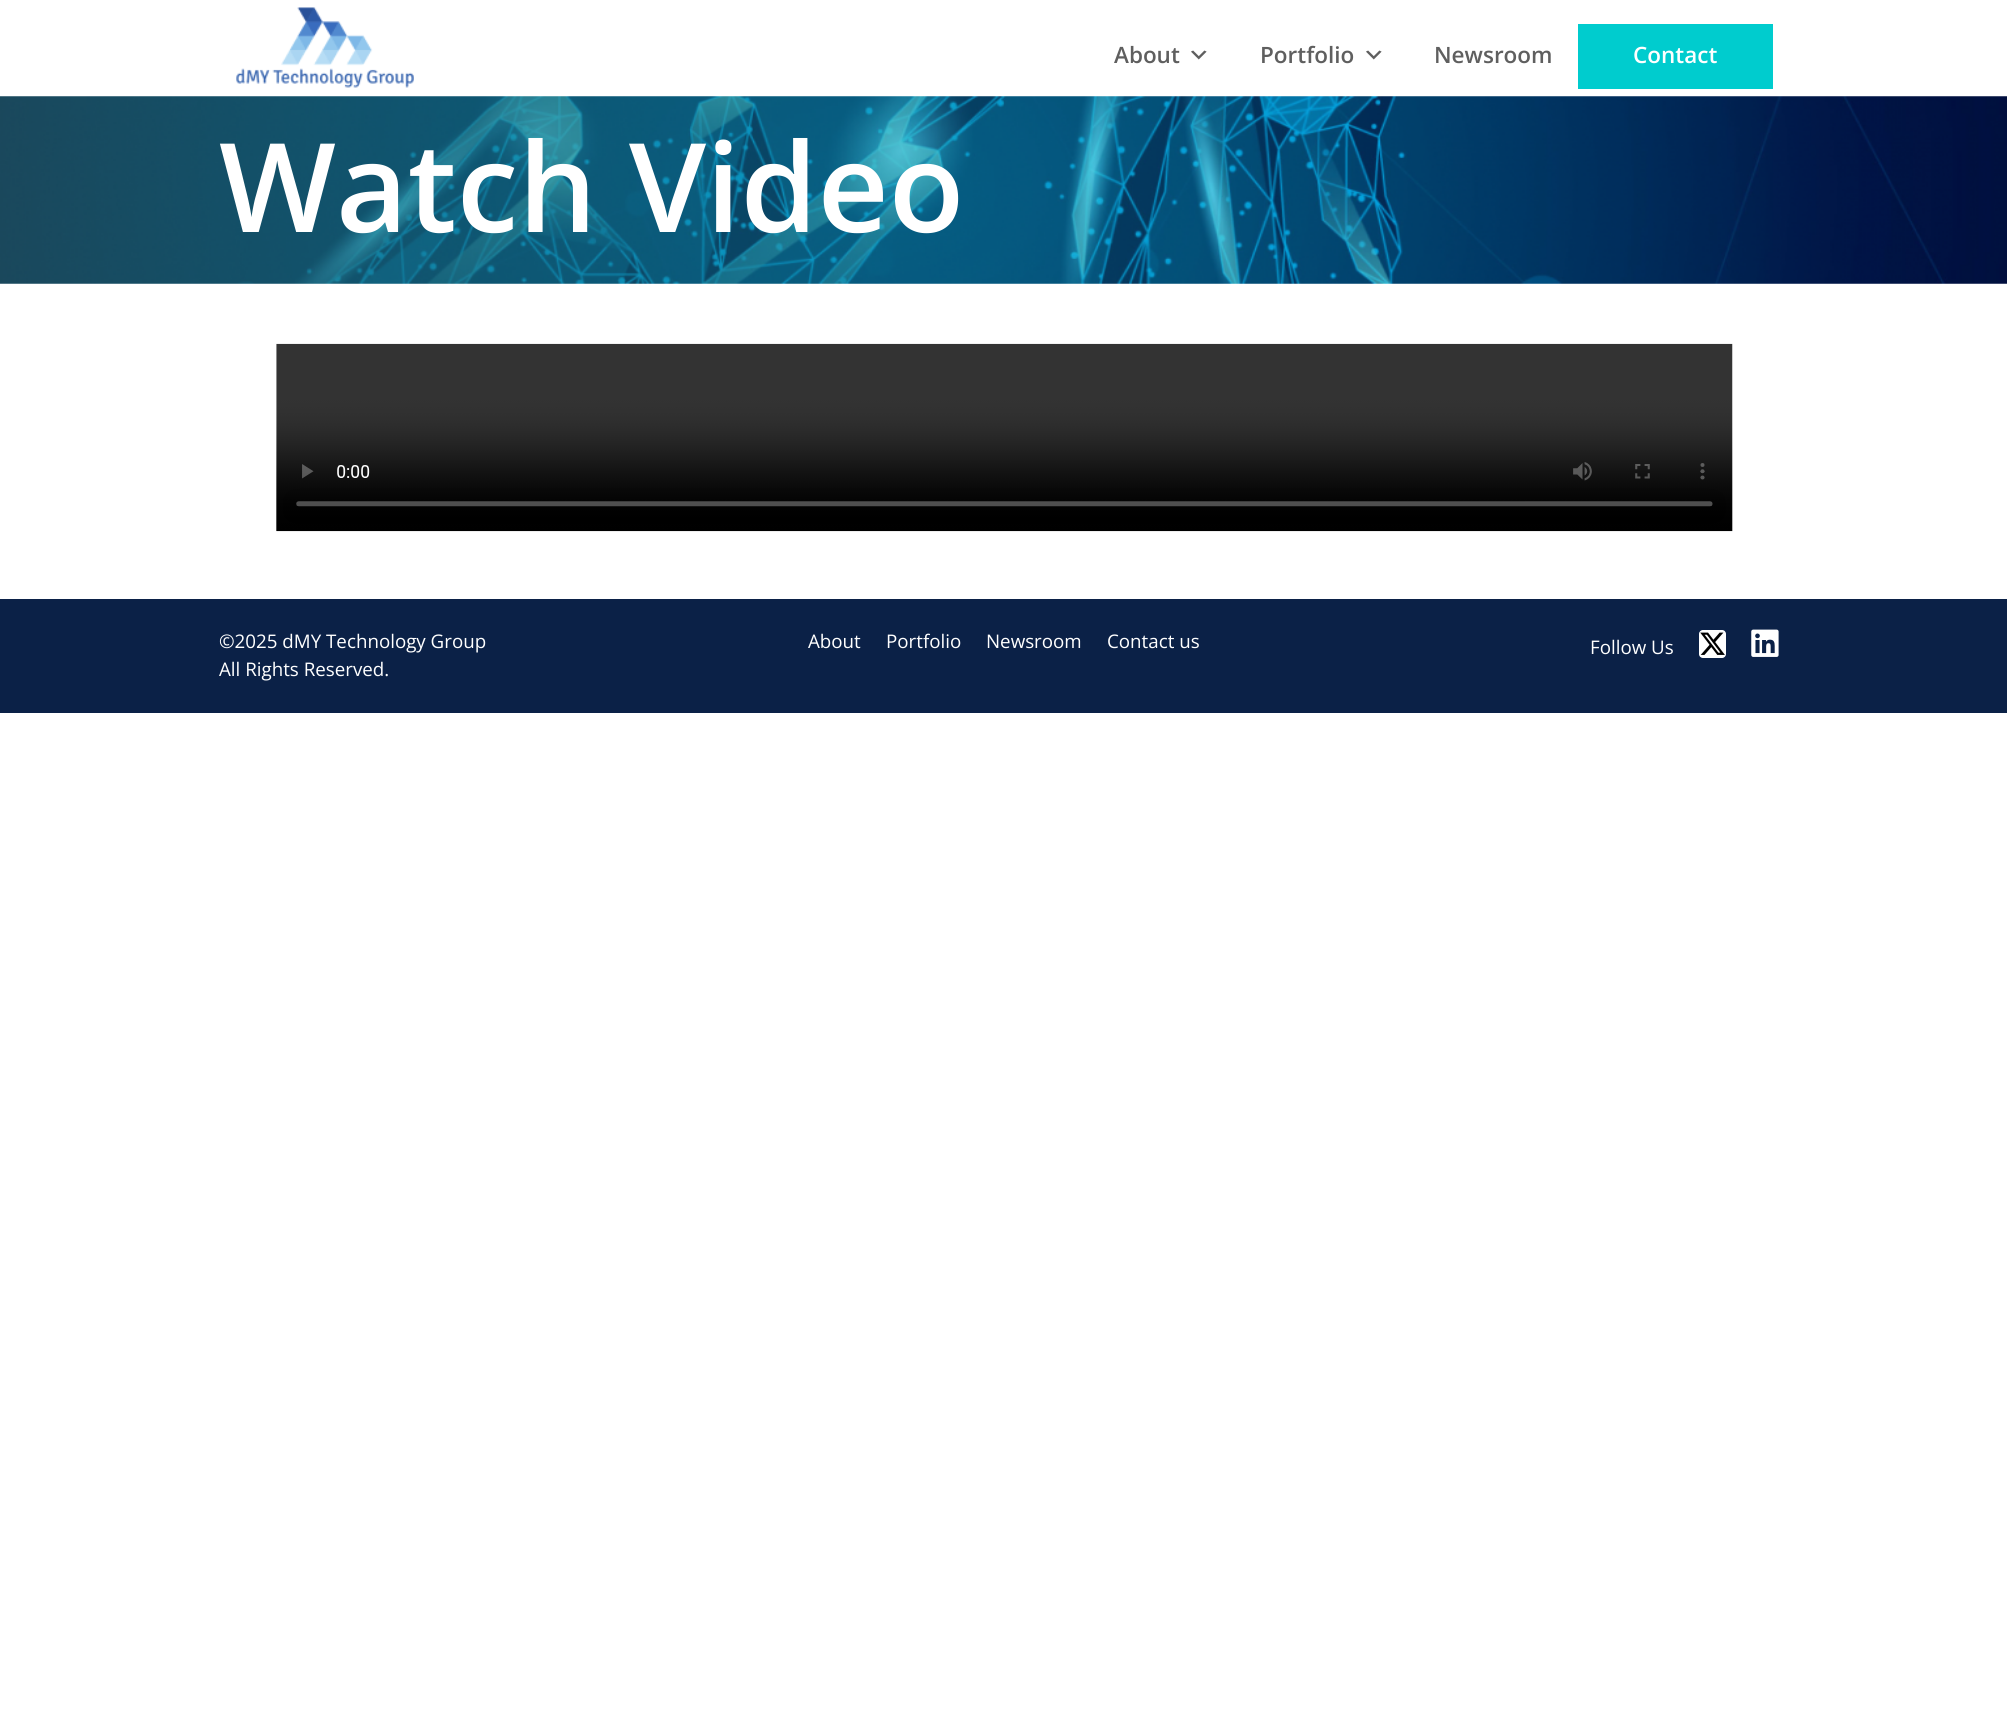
#include <cairo.h>
#include <math.h>
#include <stddef.h>

static cairo_t *c;
static void C(unsigned color){cairo_set_source_rgb(c, (color >> 16) / 255.0, (color >> 8 & 255) / 255.0, (color & 255) / 255.0);}
static void F(const char *family, double size, int italic, int bold){cairo_select_font_face(c, family, italic ? CAIRO_FONT_SLANT_ITALIC : CAIRO_FONT_SLANT_NORMAL,bold ? CAIRO_FONT_WEIGHT_BOLD : CAIRO_FONT_WEIGHT_NORMAL);cairo_set_font_size(c, size);}
static void T(double x, double y, const char *s){cairo_move_to(c, x, y);cairo_show_text(c, s);}
static void R(double x, double y, double w, double h){cairo_rectangle(c, x, y, w, h);cairo_fill(c);}
static void Q(double x, double y, double w, double h, double r){cairo_new_sub_path(c);cairo_arc(c, x + w - r, y + h - r, r, 0, M_PI / 2);cairo_arc(c, x + r, y + h - r, r, M_PI / 2, M_PI);cairo_arc(c, x + r, y + r, r, M_PI, 1.5 * M_PI);cairo_arc(c, x + w - r, y + r, r, 1.5 * M_PI, 2 * M_PI);cairo_close_path(c);}
static void I(const char *path, double x, double y, double w, double h){cairo_surface_t *image = cairo_image_surface_create_from_png(path);cairo_save(c);cairo_set_source_surface(c, image, x, y);cairo_rectangle(c, x, y, w, h);cairo_fill(c);cairo_restore(c);cairo_surface_destroy(image);}
int main(void) {
cairo_surface_t *surface = cairo_image_surface_create(CAIRO_FORMAT_RGB24, 2007, 1711);
c = cairo_create(surface);
cairo_font_options_t *options = cairo_font_options_create();
cairo_font_options_set_hint_metrics(options, CAIRO_HINT_METRICS_OFF);
cairo_font_options_set_hint_style(options, CAIRO_HINT_STYLE_NONE);
cairo_set_font_options(c, options);
cairo_set_miter_limit(c, 4);
C(0xffffff);
cairo_paint(c);
I("1.png",236,7,178,81);
F("Open Sans SemiBold",22.5,0,0);
C(0x5f5f5f);
T(1114,63,"About");
I("2.png",1191,50,16,10);
T(1260,63,"Portfolio");
I("2.png",1366,50,16,10);
T(1434,63,"Newsroom");
C(0x00ccce);
R(1578,24,195,65);
C(0xffffff);
T(1633,63,"Contact");
I("3.png",0,96,2007,188);
F("Open Sans SemiBold",123.75,0,0);
T(219,232,"Watch Video");
I("4.png",276,343,1457,189);
C(0x0b2147);
R(0,599,2007,114);
F("Open Sans",18.75,0,0);
C(0xffffff);
T(219,648,"©2025 dMY Technology Group");
T(219,676,"All Rights Reserved.");
T(808,648,"About");
T(886,648,"Portfolio");
T(986,648,"Newsroom");
T(1107,648,"Contact us");
T(1590,654,"Follow Us");
Q(1699,630,27,28,4);
cairo_fill(c);
I("5.png",1700,632,25,23);
I("6.png",1751,629,28,28);
cairo_surface_write_to_png(surface, "o.png");
cairo_font_options_destroy(options);
cairo_destroy(c);
cairo_surface_destroy(surface);
return 0;
}
